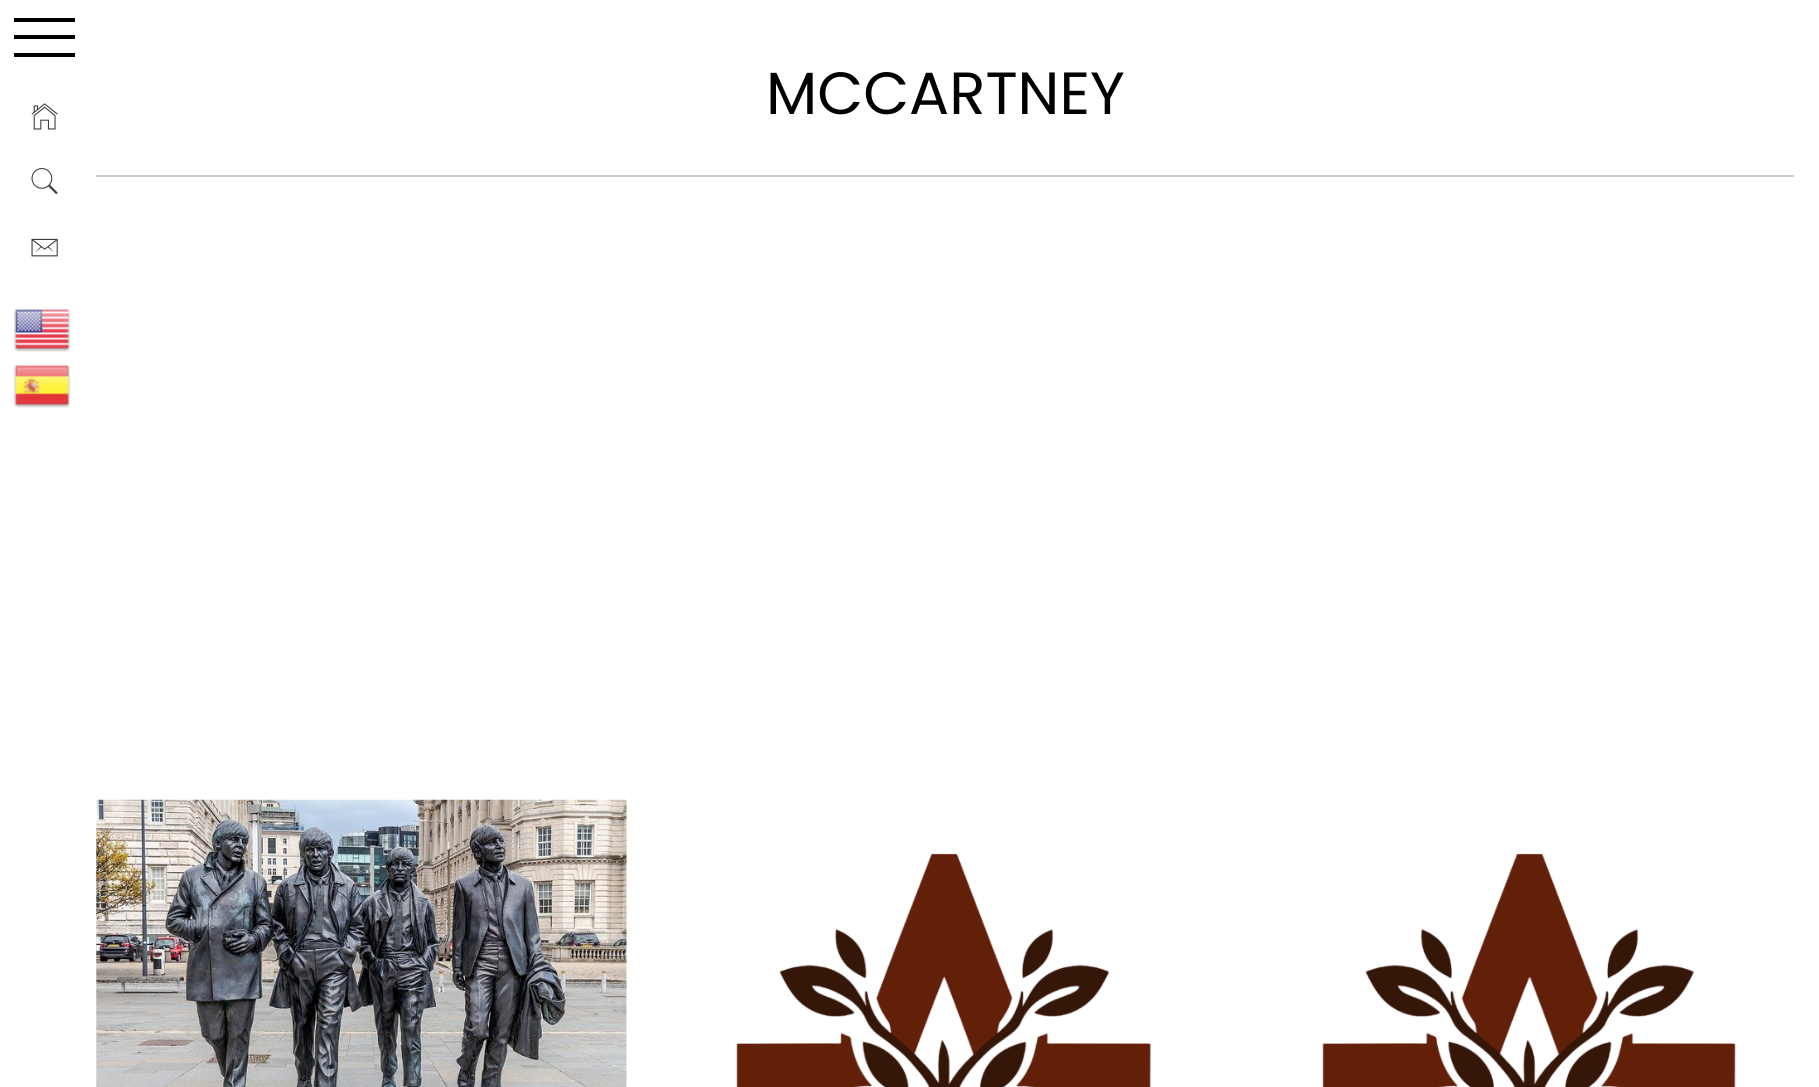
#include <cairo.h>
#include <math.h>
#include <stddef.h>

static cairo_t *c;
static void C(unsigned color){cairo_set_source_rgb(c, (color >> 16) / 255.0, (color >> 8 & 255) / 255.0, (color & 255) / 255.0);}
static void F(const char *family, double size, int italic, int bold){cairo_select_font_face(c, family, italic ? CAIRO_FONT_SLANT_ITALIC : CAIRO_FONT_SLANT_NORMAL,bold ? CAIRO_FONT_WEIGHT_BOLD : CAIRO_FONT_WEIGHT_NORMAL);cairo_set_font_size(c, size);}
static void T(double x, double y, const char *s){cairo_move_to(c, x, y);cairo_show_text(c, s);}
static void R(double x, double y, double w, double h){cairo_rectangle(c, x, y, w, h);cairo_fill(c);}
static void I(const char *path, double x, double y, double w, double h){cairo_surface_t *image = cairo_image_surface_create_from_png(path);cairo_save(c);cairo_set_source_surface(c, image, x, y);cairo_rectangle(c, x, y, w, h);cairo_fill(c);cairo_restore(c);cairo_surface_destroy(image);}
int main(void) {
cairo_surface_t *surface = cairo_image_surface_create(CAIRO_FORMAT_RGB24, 1819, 1087);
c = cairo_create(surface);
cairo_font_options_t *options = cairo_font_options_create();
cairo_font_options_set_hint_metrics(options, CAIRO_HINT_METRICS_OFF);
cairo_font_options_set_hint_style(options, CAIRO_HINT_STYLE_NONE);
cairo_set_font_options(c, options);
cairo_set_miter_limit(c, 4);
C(0xffffff);
cairo_paint(c);
C(0x000000);
R(14,18,61,4);
R(14,35,61,4);
R(14,53,61,4);
I("1.png",31,103,27,27);
I("2.png",31,168,27,27);
I("3.png",31,238,27,19);
I("4.png",14,308,56,44);
I("5.png",14,364,56,44);
F("Poppins",59.5,0,0);
T(766,114,"MCCARTNEY");
C(0xcccccc);
R(96,175,1698,2);
I("6.png",96,799,531,288);
I("7.png",736,853,415,234);
I("8.png",1322,853,414,234);
cairo_surface_write_to_png(surface, "o.png");
cairo_font_options_destroy(options);
cairo_destroy(c);
cairo_surface_destroy(surface);
return 0;
}
